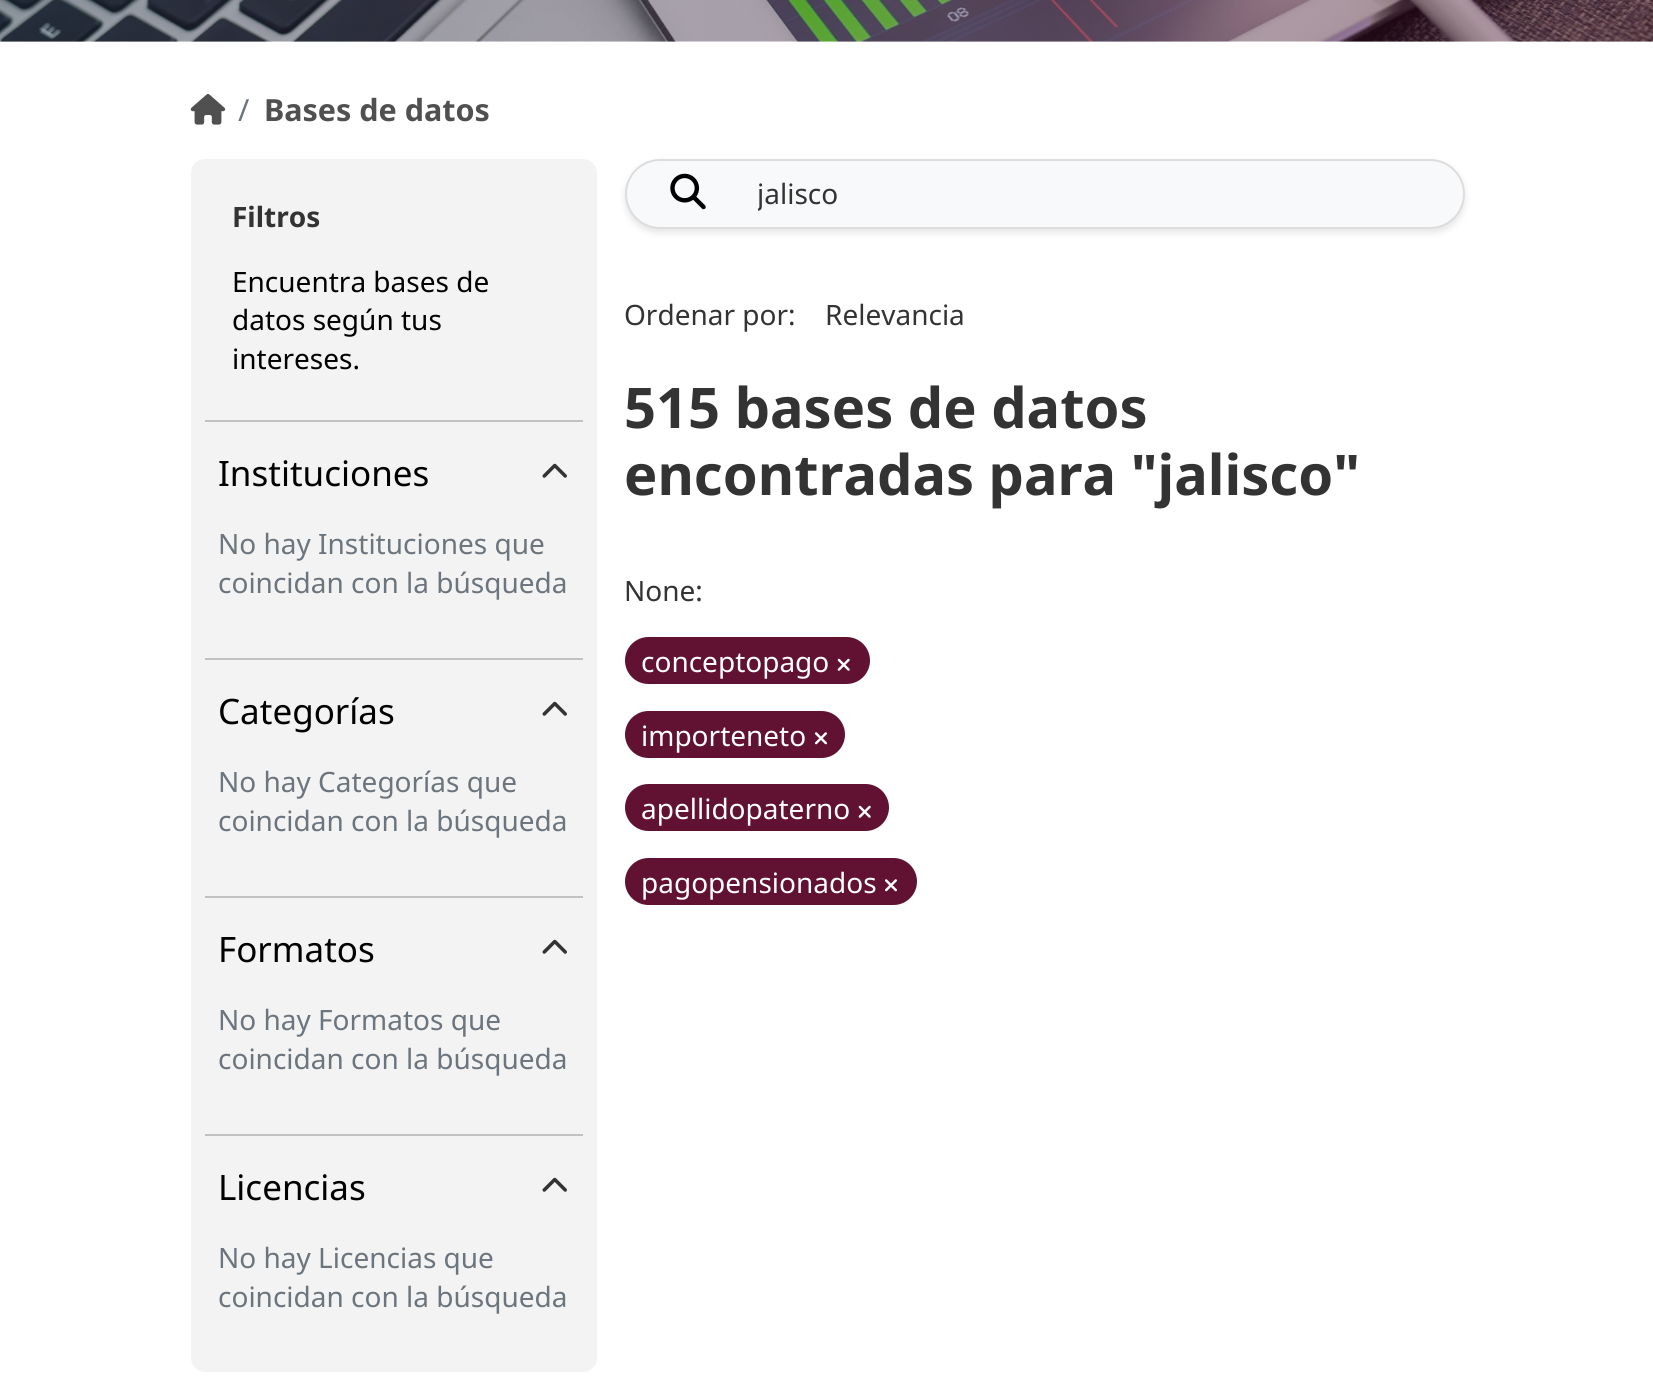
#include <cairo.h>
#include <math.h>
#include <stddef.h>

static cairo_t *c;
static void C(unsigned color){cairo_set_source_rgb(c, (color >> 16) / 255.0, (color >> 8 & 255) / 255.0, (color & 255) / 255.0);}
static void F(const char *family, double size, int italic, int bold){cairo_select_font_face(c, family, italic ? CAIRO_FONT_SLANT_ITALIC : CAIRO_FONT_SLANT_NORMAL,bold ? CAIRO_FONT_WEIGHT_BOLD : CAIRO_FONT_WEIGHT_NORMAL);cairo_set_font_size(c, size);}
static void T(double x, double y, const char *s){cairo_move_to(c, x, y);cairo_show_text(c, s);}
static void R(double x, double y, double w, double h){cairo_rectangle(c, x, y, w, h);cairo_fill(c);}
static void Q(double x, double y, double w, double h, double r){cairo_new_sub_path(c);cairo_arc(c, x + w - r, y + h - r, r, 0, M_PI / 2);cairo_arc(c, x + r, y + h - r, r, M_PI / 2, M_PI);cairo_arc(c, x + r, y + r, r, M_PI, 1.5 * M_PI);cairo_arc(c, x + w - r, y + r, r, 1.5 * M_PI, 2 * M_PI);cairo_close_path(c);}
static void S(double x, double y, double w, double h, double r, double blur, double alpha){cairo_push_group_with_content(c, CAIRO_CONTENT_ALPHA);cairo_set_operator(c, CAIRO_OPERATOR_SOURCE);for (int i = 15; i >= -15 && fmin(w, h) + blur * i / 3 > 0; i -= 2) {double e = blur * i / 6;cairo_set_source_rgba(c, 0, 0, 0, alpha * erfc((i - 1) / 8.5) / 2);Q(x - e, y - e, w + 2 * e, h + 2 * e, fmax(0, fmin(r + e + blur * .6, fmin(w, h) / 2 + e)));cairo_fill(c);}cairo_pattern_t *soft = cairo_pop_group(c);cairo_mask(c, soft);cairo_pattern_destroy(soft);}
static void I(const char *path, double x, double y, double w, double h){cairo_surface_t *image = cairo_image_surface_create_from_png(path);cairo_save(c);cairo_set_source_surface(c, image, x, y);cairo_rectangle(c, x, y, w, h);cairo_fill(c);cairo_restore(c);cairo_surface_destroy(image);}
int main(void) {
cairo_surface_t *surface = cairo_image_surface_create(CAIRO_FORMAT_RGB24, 1653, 1390);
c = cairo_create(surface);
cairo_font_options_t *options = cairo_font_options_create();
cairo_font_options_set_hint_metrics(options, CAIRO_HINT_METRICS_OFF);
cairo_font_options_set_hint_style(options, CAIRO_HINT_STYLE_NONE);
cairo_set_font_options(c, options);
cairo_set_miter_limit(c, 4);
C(0xffffff);
cairo_paint(c);
I("1.png",0,0,1653,42);
I("2.png",190,94,36,31);
F("Noto Sans",30.5,0,0);
C(0x6c757d);
T(238,121,"/");
F("Noto Sans",30.5,0,1);
C(0x505050);
T(264,121,"Bases de datos");
C(0xf3f3f3);
Q(191,159,406,1213,14);
cairo_fill(c);
F("Noto Sans",28,0,1);
C(0x333333);
T(232,227,"Filtros");
F("Noto Sans",28,0,0);
C(0x000000);
T(232,292,"Encuentra bases de");
T(232,330,"datos según tus");
T(232,369,"intereses.");
C(0xc1c1c1);
R(205,420,378,2);
F("Noto Sans",35,0,0);
C(0x000000);
T(218,486,"Instituciones");
I("3.png",542,463,25,15);
F("Noto Sans",28,0,0);
C(0x6c757d);
T(218,554,"No hay Instituciones que");
T(218,593,"coincidan con la búsqueda");
C(0xc1c1c1);
R(205,658,378,2);
F("Noto Sans",35,0,0);
C(0x000000);
T(218,724,"Categorías");
I("3.png",542,701,25,15);
F("Noto Sans",28,0,0);
C(0x6c757d);
T(218,792,"No hay Categorías que");
T(218,831,"coincidan con la búsqueda");
C(0xc1c1c1);
R(205,896,378,2);
F("Noto Sans",35,0,0);
C(0x000000);
T(218,962,"Formatos");
I("3.png",542,939,25,15);
F("Noto Sans",28,0,0);
C(0x6c757d);
T(218,1030,"No hay Formatos que");
T(218,1069,"coincidan con la búsqueda");
C(0xc1c1c1);
R(205,1134,378,2);
F("Noto Sans",35,0,0);
C(0x000000);
T(218,1200,"Licencias");
I("3.png",542,1177,25,15);
F("Noto Sans",28,0,0);
C(0x6c757d);
T(218,1268,"No hay Licencias que");
T(218,1307,"coincidan con la búsqueda");
C(0x000000);
S(625,163,840,70,35,3.5,.1);
C(0xf8f9fa);
Q(626,160,838,68,34);
cairo_fill_preserve(c);
C(0xdddddd);
cairo_stroke(c);
I("4.png",670,173,36,37);
cairo_save(c);
cairo_rectangle(c,758,173,675,42);
cairo_clip(c);
C(0x333333);
T(757,204,"jalisco");
cairo_restore(c);
C(0x333333);
T(624,325,"Ordenar por:");
T(825,325,"Relevancia");
F("Noto Sans",56,0,1);
T(624,428,"515 bases de datos");
T(624,495,"encontradas para \"jalisco\"");
F("Noto Sans",28,0,0);
T(624,601,"None:");
C(0x611232);
Q(625,637,245,47,23.5);
cairo_fill(c);
C(0xffffff);
T(641,672,"conceptopago");
I("5.png",837,658,13,13);
C(0x611232);
Q(625,711,220,47,23.5);
cairo_fill(c);
C(0xffffff);
T(641,746,"importeneto");
I("6.png",815,732,12,13);
C(0x611232);
Q(625,784,264,47,23.5);
cairo_fill(c);
C(0xffffff);
T(641,819,"apellidopaterno");
I("5.png",858,805,13,13);
C(0x611232);
Q(625,858,292,47,23.5);
cairo_fill(c);
C(0xffffff);
T(641,893,"pagopensionados");
I("6.png",885,879,12,13);
cairo_surface_write_to_png(surface, "o.png");
cairo_font_options_destroy(options);
cairo_destroy(c);
cairo_surface_destroy(surface);
return 0;
}
